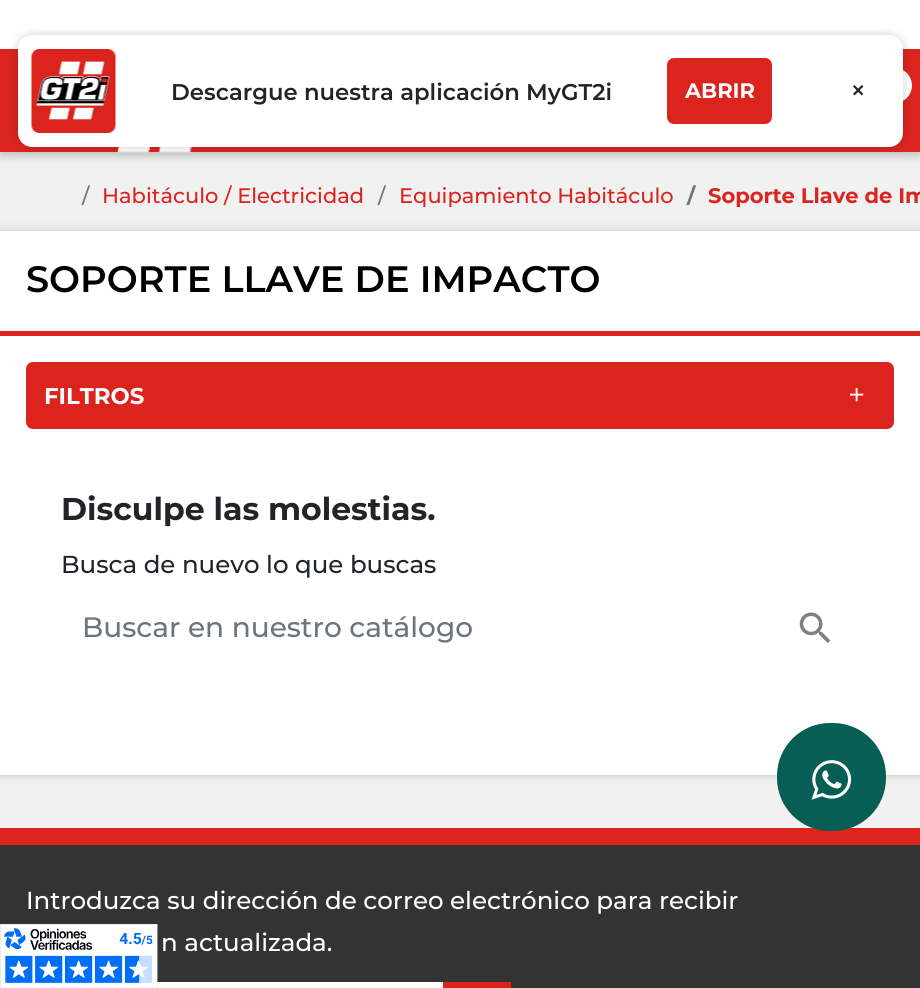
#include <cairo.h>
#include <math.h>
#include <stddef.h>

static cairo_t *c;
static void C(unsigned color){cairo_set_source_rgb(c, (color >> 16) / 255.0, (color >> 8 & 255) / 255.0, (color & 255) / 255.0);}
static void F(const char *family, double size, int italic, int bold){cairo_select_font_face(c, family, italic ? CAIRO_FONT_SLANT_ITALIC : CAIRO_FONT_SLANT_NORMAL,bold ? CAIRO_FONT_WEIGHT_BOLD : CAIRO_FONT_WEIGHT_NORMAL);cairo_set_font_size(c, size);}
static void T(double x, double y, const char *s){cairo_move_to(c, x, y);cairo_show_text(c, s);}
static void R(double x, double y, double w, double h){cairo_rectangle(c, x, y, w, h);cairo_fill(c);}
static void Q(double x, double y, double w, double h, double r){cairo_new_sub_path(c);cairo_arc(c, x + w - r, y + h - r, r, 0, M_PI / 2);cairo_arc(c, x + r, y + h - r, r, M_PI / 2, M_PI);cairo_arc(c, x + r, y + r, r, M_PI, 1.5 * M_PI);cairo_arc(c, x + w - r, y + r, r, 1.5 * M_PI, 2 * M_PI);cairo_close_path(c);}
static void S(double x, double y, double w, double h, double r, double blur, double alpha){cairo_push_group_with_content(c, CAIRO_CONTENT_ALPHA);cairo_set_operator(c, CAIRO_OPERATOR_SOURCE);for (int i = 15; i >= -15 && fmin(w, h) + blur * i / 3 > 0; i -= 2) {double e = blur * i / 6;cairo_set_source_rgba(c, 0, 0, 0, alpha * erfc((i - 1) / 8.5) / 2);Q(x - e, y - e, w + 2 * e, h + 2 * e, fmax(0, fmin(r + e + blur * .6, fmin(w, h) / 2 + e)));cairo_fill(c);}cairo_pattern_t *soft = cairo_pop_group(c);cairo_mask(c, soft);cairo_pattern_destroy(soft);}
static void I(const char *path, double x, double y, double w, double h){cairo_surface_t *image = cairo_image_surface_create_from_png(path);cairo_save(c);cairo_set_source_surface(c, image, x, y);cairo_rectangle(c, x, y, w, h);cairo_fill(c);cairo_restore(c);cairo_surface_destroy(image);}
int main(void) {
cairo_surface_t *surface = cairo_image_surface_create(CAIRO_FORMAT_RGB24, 920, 988);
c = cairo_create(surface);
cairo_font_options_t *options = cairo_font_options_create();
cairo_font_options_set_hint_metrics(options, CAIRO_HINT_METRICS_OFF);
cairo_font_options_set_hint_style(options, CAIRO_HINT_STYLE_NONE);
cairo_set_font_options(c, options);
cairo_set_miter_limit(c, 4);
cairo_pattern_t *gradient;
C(0xf1f1f1);
cairo_paint(c);
C(0x000000);
S(0,4,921,152,0,5,.2);
C(0xdb241e);
R(0,49,920,103);
C(0xffffff);
R(0,0,920,49);
cairo_arc(c,894.5,85.5,17.5,0,2 * M_PI);
cairo_fill(c);
I("2.png",117,147,75,6);
C(0x000000);
S(18,35,885,112,14,4.5,.2);
C(0xffffff);
Q(18,35,885,112,14);
cairo_fill(c);
I("1.png",31,49,85,84);
F("Montserrat SemiBold",22.75,0,0);
C(0x212529);
T(171,100,"Descargue nuestra aplicación MyGT2i");
gradient = cairo_pattern_create_linear(596,-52,790,101);
cairo_pattern_add_color_stop_rgba(gradient,.5,0.773,0.078,0.078,1);
cairo_pattern_add_color_stop_rgba(gradient,.5,0.859,0.141,0.118,1);
cairo_set_source(c,gradient);
cairo_pattern_destroy(gradient);
Q(667,58,105,66,7);
cairo_fill(c);
F("Montserrat",21,0,1);
C(0xffffff);
T(685,98,"ABRIR");
F("Montserrat Medium",28,0,0);
C(0x212529);
T(850,100,"×");
F("Montserrat Medium",21,0,0);
C(0x6c757d);
T(82,203,"/");
C(0xdb241e);
T(102,203,"Habitáculo / Electricidad");
C(0x6c757d);
T(378,203,"/");
C(0xdb241e);
T(399,203,"Equipamiento Habitáculo");
F("Montserrat",21,0,1);
C(0x6c757d);
T(687,203,"/");
C(0xdb241e);
T(708,203,"Soporte Llave de Im");
C(0x000000);
S(0,231,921,544,0,4.5,.2);
C(0xffffff);
R(0,231,920,544);
C(0xdb241e);
R(0,331,920,5);
F("Montserrat SemiBold",36.75,0,0);
C(0x000000);
T(26,292,"SOPORTE LLAVE DE IMPACTO");
gradient = cairo_pattern_create_linear(213,134,273,524);
cairo_pattern_add_color_stop_rgba(gradient,.5,0.773,0.078,0.078,1);
cairo_pattern_add_color_stop_rgba(gradient,.5,0.859,0.141,0.118,1);
cairo_set_source(c,gradient);
cairo_pattern_destroy(gradient);
Q(26,362,868,67,7);
cairo_fill(c);
F("Montserrat",22.75,0,1);
C(0xffffff);
T(44,404,"FILTROS");
I("3.png",850,388,14,14);
F("Montserrat",31.5,0,1);
C(0x212529);
T(61,520,"Disculpe las molestias.");
F("Montserrat Medium",24.5,0,0);
T(61,573,"Busca de nuevo lo que buscas");
F("Montserrat Medium",28,0,0);
C(0x6c757d);
T(82,637,"Buscar en nuestro catálogo");
I("4.png",799,612,32,31);
C(0x333333);
R(0,845,920,143);
C(0xdb241e);
R(0,828,920,17);
F("Montserrat Medium",24.5,0,0);
C(0xffffff);
T(26,909,"Introduzca su dirección de correo electrónico para recibir");
T(161,951,"n actualizada.");
R(157,982,286,6);
C(0xdb241e);
R(443,982,68,6);
C(0x065e54);
Q(778,724,107,106,52);
cairo_fill_preserve(c);
cairo_stroke(c);
I("5.png",811,760,41,40);
I("6.png",0,924,158,64);
cairo_surface_write_to_png(surface, "o.png");
cairo_font_options_destroy(options);
cairo_destroy(c);
cairo_surface_destroy(surface);
return 0;
}
